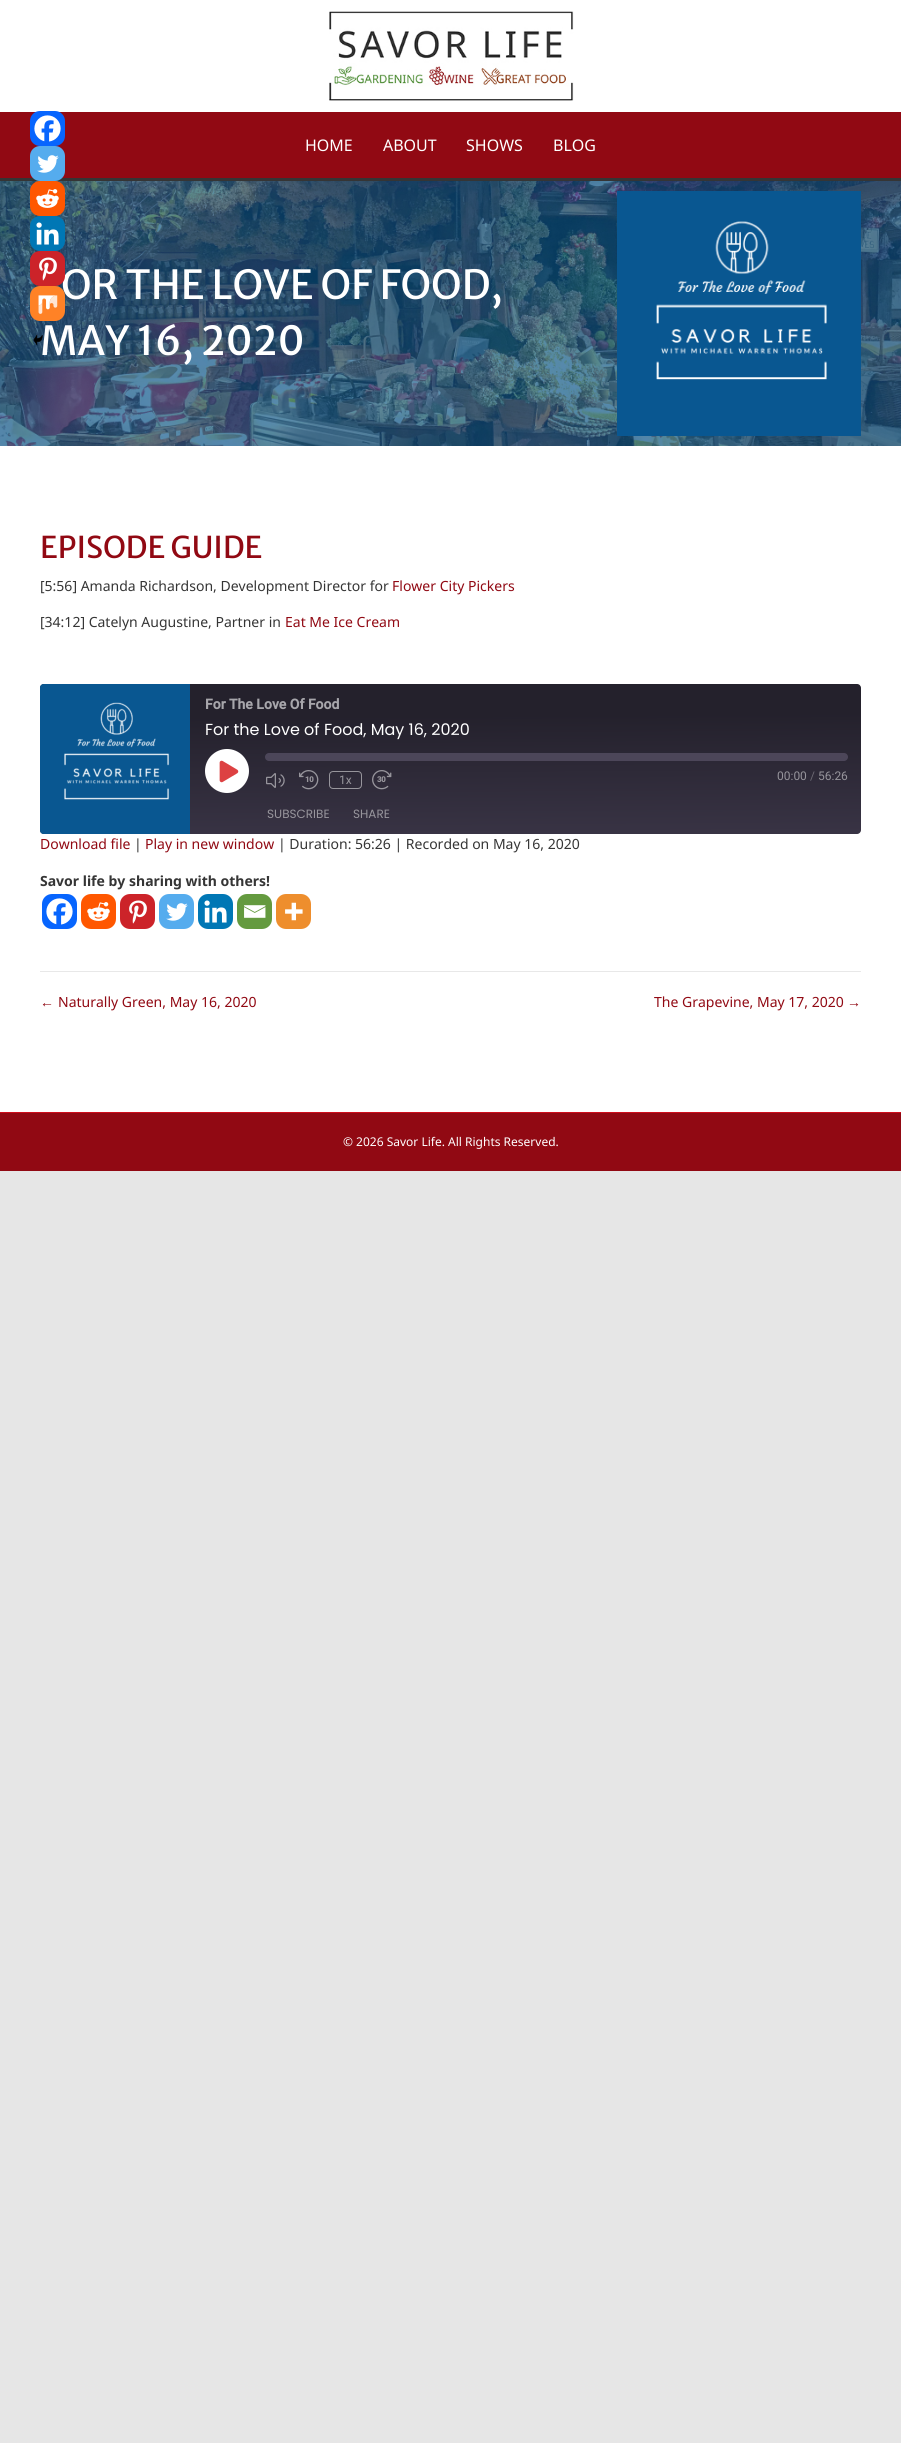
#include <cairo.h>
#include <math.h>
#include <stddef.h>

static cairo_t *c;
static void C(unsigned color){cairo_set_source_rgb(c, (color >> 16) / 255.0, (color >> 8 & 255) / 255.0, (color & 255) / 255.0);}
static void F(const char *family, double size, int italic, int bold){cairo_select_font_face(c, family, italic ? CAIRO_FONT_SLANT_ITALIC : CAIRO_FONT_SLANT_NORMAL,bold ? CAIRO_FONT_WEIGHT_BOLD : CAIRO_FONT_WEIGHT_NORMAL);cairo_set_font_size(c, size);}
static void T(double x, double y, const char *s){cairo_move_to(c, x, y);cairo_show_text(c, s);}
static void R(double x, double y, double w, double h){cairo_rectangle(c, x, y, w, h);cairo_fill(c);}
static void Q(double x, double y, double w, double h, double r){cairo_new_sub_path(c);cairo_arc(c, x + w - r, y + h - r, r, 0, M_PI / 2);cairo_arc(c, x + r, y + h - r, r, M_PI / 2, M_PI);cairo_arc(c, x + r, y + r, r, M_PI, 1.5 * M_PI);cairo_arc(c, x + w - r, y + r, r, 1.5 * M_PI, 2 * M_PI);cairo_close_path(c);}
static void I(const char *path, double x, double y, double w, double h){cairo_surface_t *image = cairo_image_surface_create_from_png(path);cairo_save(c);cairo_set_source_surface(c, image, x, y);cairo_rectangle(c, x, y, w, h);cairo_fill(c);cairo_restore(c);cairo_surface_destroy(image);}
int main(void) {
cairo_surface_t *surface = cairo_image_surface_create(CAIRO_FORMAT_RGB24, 901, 2443);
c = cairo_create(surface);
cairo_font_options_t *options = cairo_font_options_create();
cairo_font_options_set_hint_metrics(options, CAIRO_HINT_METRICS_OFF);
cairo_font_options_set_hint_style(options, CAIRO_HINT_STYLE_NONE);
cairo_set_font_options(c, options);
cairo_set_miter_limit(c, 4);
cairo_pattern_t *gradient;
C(0xe6e6e6);
cairo_paint(c);
C(0xffffff);
R(0,0,901,1112);
I("1.png",329,11,245,90);
C(0x910913);
R(0,112,901,66);
C(0x353535);
R(0,178,901,3);
F("Noto Sans",16,0,0);
C(0xffffff);
T(305,151,"HOME");
T(383,151,"ABOUT");
T(466,151,"SHOWS");
T(553,151,"BLOG");
I("2.png",0,181,901,265);
F("Merriweather Sans",40,0,0);
T(61,299,"OR THE LOVE OF FOOD,");
T(40,355,"MAY 16, 2020");
I("3.png",617,191,244,245);
C(0x0765fe);
Q(30,111,35,35,10);
cairo_fill(c);
I("4.png",34,115,27,27);
C(0x55acee);
Q(30,146,35,35,10);
cairo_fill(c);
I("5.png",37,155,22,18);
C(0xff5700);
Q(30,181,35,35,10);
cairo_fill(c);
I("6.png",36,189,23,19);
C(0x0077b5);
Q(30,216,35,35,10);
cairo_fill(c);
I("7.png",36,222,23,23);
C(0xcc2329);
Q(30,251,35,35,10);
cairo_fill(c);
I("8.png",39,257,18,24);
C(0xff8226);
Q(30,286,35,35,10);
cairo_fill(c);
I("9.png",38,295,20,19);
I("10.png",33,334,10,12);
F("Merriweather Sans",30,0,0);
C(0x910913);
T(40,558,"EPISODE GUIDE");
F("Noto Sans",14,0,0);
C(0x353535);
T(40,591,"[5:56] Amanda Richardson, Development Director for");
C(0x910913);
T(392,591,"Flower City Pickers");
C(0x353535);
T(40,627,"[34:12] Catelyn Augustine, Partner in");
C(0x910913);
T(285,627,"Eat Me Ice Cream");
gradient = cairo_pattern_create_linear(451,836,450,682);
cairo_pattern_add_color_stop_rgba(gradient,.01,0.22,0.2,0.267,1);
cairo_pattern_add_color_stop_rgba(gradient,.78,0.141,0.129,0.173,1);
cairo_set_source(c,gradient);
cairo_pattern_destroy(gradient);
Q(40,684,821,150,4);
cairo_fill(c);
I("11.png",40,684,150,150);
F("Roboto",14,0,1);
C(0xa7a6ab);
T(205,709,"For The Love Of Food");
F("Poppins",16,0,0);
C(0xffffff);
T(205,735,"For the Love of Food, May 16, 2020");
cairo_new_path(c);
cairo_arc(c,227,771,22,0,2 * M_PI);
cairo_fill(c);
I("12.png",219,760,20,23);
C(0x4c4659);
Q(265,753,583,8,4);
cairo_fill(c);
I("13.png",266,773,19,15);
I("14.png",299,770,20,20);
Q(329.5,771.5,32,17,3.5);
cairo_set_source_rgba(c,1,1,1,0.5);
cairo_set_line_width(c,1);
cairo_stroke(c);
F("Roboto",12,0,0);
C(0x97959c);
T(339,784,"1x");
I("15.png",372,770,20,20);
T(777,780,"00:00");
C(0x6d6a74);
T(810,780,"/");
C(0x97959c);
T(818,780,"56:26");
F("Poppins",12,0,0);
T(267,818,"SUBSCRIBE");
T(353,818,"SHARE");
F("Noto Sans",14,0,0);
C(0x910913);
T(40,849,"Download file");
C(0x353535);
T(134,849,"|");
C(0x910913);
T(145,849,"Play in new window");
C(0x353535);
T(278,849,"| Duration: 56:26 | Recorded on May 16, 2020");
F("Noto Sans",14,0,1);
T(40,886,"Savor life by sharing with others!");
C(0x0765fe);
Q(42,894,35,35,10);
cairo_fill(c);
I("4.png",46,898,27,27);
C(0xff5700);
Q(81,894,35,35,10);
cairo_fill(c);
I("6.png",87,902,23,19);
C(0xcc2329);
Q(120,894,35,35,10);
cairo_fill(c);
I("8.png",129,900,18,24);
C(0x55acee);
Q(159,894,35,35,10);
cairo_fill(c);
I("5.png",166,903,22,18);
C(0x0077b5);
Q(198,894,35,35,10);
cairo_fill(c);
I("7.png",204,900,23,23);
C(0x649a3f);
Q(237,894,35,35,10);
cairo_fill(c);
I("16.png",244,905,22,13);
C(0xee8e2d);
Q(276,894,35,35,10);
cairo_fill(c);
I("17.png",285,902,18,19);
C(0xe8e8e8);
R(40,971,821,1);
F("Liberation Sans",14,0,0);
C(0x910913);
T(40,1007,"←");
F("Noto Sans",14,0,0);
T(58,1007,"Naturally Green, May 16, 2020");
T(654,1007,"The Grapevine, May 17, 2020");
F("Liberation Sans",14,0,0);
T(847,1007,"→");
R(0,1113,901,58);
C(0xcf0d1b);
R(0,1112,901,1);
F("Noto Sans",12,0,0);
C(0xffffff);
T(343,1146,"© 2026 Savor Life. All Rights Reserved.");
cairo_surface_write_to_png(surface, "o.png");
cairo_font_options_destroy(options);
cairo_destroy(c);
cairo_surface_destroy(surface);
return 0;
}
